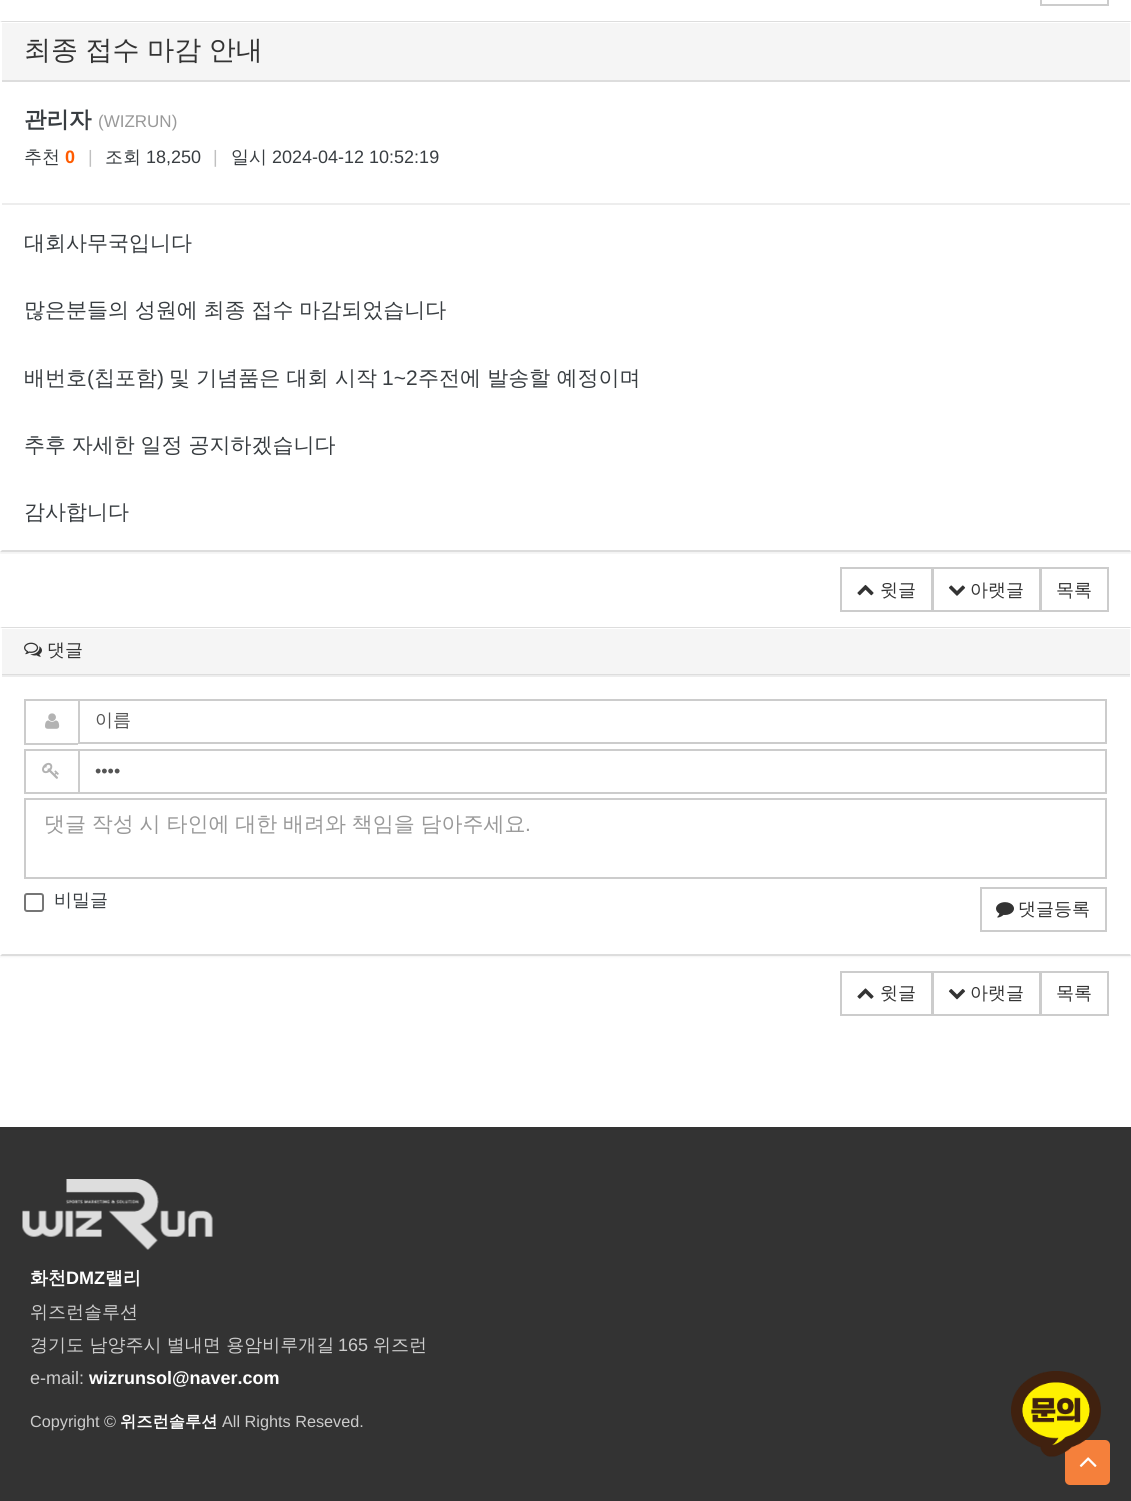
#include <cairo.h>
#include <math.h>
#include <stddef.h>

static cairo_t *c;
static void C(unsigned color){cairo_set_source_rgb(c, (color >> 16) / 255.0, (color >> 8 & 255) / 255.0, (color & 255) / 255.0);}
static void F(const char *family, double size, int italic, int bold){cairo_select_font_face(c, family, italic ? CAIRO_FONT_SLANT_ITALIC : CAIRO_FONT_SLANT_NORMAL,bold ? CAIRO_FONT_WEIGHT_BOLD : CAIRO_FONT_WEIGHT_NORMAL);cairo_set_font_size(c, size);}
static void T(double x, double y, const char *s){cairo_move_to(c, x, y);cairo_show_text(c, s);}
static void L(double x, double y, const char *s, double letter, double word){cairo_move_to(c, x, y);while (*s) {char ch[5] = {0};int n = 0;do ch[n++] = *s++; while ((*s & 0xC0) == 0x80);cairo_show_text(c, ch);cairo_rel_move_to(c, letter + word * (*ch == ' '), 0);}}
static void R(double x, double y, double w, double h){cairo_rectangle(c, x, y, w, h);cairo_fill(c);}
static void Q(double x, double y, double w, double h, double r){cairo_new_sub_path(c);cairo_arc(c, x + w - r, y + h - r, r, 0, M_PI / 2);cairo_arc(c, x + r, y + h - r, r, M_PI / 2, M_PI);cairo_arc(c, x + r, y + r, r, M_PI, 1.5 * M_PI);cairo_arc(c, x + w - r, y + r, r, 1.5 * M_PI, 2 * M_PI);cairo_close_path(c);}
static void S(double x, double y, double w, double h, double r, double blur, double alpha){cairo_push_group_with_content(c, CAIRO_CONTENT_ALPHA);cairo_set_operator(c, CAIRO_OPERATOR_SOURCE);for (int i = 15; i >= -15 && fmin(w, h) + blur * i / 3 > 0; i -= 2) {double e = blur * i / 6;cairo_set_source_rgba(c, 0, 0, 0, alpha * erfc((i - 1) / 8.5) / 2);Q(x - e, y - e, w + 2 * e, h + 2 * e, fmax(0, fmin(r + e + blur * .6, fmin(w, h) / 2 + e)));cairo_fill(c);}cairo_pattern_t *soft = cairo_pop_group(c);cairo_mask(c, soft);cairo_pattern_destroy(soft);}
static void I(const char *path, double x, double y, double w, double h){cairo_surface_t *image = cairo_image_surface_create_from_png(path);cairo_save(c);cairo_set_source_surface(c, image, x, y);cairo_rectangle(c, x, y, w, h);cairo_fill(c);cairo_restore(c);cairo_surface_destroy(image);}
int main(void) {
cairo_surface_t *surface = cairo_image_surface_create(CAIRO_FORMAT_RGB24, 1131, 1501);
c = cairo_create(surface);
cairo_font_options_t *options = cairo_font_options_create();
cairo_font_options_set_hint_metrics(options, CAIRO_HINT_METRICS_OFF);
cairo_font_options_set_hint_style(options, CAIRO_HINT_STYLE_NONE);
cairo_set_font_options(c, options);
cairo_set_miter_limit(c, 4);
C(0xffffff);
cairo_paint(c);
cairo_rectangle(c,1041,-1,67,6);
C(0xcccccc);
cairo_stroke(c);
cairo_save(c);
cairo_rectangle(c,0,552,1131,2);
cairo_clip(c);
C(0x000000);
S(0,23,1131,531,0,1,.05);
cairo_restore(c);
C(0xdddddd);
cairo_new_path(c);
cairo_move_to(c,0,21);
cairo_line_to(c,1131,21);
cairo_line_to(c,1130,22);
cairo_line_to(c,2,22);
cairo_close_path(c);
cairo_fill(c);
cairo_new_path(c);
cairo_move_to(c,1131,552);
cairo_line_to(c,0,552);
cairo_line_to(c,2,550);
cairo_line_to(c,1130,550);
cairo_close_path(c);
cairo_fill(c);
C(0xf5f5f5);
R(2,23,1128,57);
C(0xdddddd);
R(2,80,1128,2);
F("WenQuanYi Zen Hei Medium",27,0,0);
C(0x333333);
L(24,59,"최종 접수 마감 안내",0,-.5);
F("WenQuanYi Zen Hei",22.5,0,1);
C(0x383d41);
T(24,127,"관리자");
F("Liberation Sans",17,0,0);
C(0x999999);
T(98,127,"(WIZRUN)");
F("WenQuanYi Zen Hei Medium",18,0,0);
C(0x383d41);
T(24,163,"추천");
F("Liberation Sans",18,0,1);
C(0xff5b00);
T(65,163,"0");
F("Liberation Sans",18,0,0);
C(0xc0c0c0);
T(88,163,"|");
F("WenQuanYi Zen Hei Medium",18,0,0);
C(0x383d41);
T(105,163,"조회");
F("Liberation Sans",18,0,0);
T(146,163,"18,250");
C(0xc0c0c0);
T(213,163,"|");
F("WenQuanYi Zen Hei Medium",18,0,0);
C(0x383d41);
T(231,163,"일시");
F("Liberation Sans",18,0,0);
T(272,163,"2024-04-12 10:52:19");
C(0xededed);
R(2,203,1128,2);
F("WenQuanYi Zen Hei Medium",21,0,0);
C(0x383d41);
T(24,250,"대회사무국입니다");
L(24,317,"많은분들의 성원에 최종 접수 마감되었습니다",0,-.5);
T(24,385,"배번호");
F("Liberation Sans",21,0,0);
T(87,385,"(");
F("WenQuanYi Zen Hei Medium",21,0,0);
T(94,385,"칩포함");
F("Liberation Sans",21,0,0);
T(157,385,")");
F("WenQuanYi Zen Hei Medium",21,0,0);
T(169,385,"및 기념품은 대회 시작");
F("Liberation Sans",21,0,0);
T(382,385,"1~2");
F("WenQuanYi Zen Hei Medium",21,0,0);
T(418,385,"주전에 발송할 예정이며");
L(24,452,"추후 자세한 일정 공지하겠습니다",0,-.5);
T(24,519,"감사합니다");
cairo_rectangle(c,841,568,91,43);
C(0xcccccc);
cairo_stroke(c);
I("1.png",857,584,17,12);
F("WenQuanYi Zen Hei Medium",18,0,0);
C(0x333333);
T(880,596,"윗글");
cairo_rectangle(c,933,568,107,43);
C(0xcccccc);
cairo_stroke(c);
I("2.png",948,585,18,11);
C(0x333333);
T(970,596,"아랫글");
cairo_rectangle(c,1041,568,67,43);
C(0xcccccc);
cairo_stroke(c);
C(0x333333);
T(1056,596,"목록");
C(0x000000);
S(0,629,1131,328,0,1,.05);
C(0xffffff);
R(0,628,1131,328);
C(0xdddddd);
cairo_new_path(c);
cairo_move_to(c,0,627);
cairo_line_to(c,1131,627);
cairo_line_to(c,1130,628);
cairo_line_to(c,2,628);
cairo_close_path(c);
cairo_fill(c);
cairo_new_path(c);
cairo_move_to(c,1131,956);
cairo_line_to(c,0,956);
cairo_line_to(c,2,954);
cairo_line_to(c,1130,954);
cairo_close_path(c);
cairo_fill(c);
C(0xf5f5f5);
R(2,629,1128,45);
C(0xdddddd);
R(2,674,1128,1);
I("3.png",24,642,18,15);
C(0x333333);
T(47,656,"댓글");
C(0xededed);
R(2,675,1128,2);
C(0xcccccc);
R(24,699,54,2);
R(24,743,54,2);
R(24,699,2,45);
I("4.png",45,713,15,16);
cairo_rectangle(c,79,700,1027,43);
cairo_stroke(c);
C(0x555555);
T(95,726,"이름");
C(0xcccccc);
R(24,749,54,2);
R(24,792,54,2);
R(24,749,2,45);
I("5.png",42,762,17,17);
cairo_rectangle(c,79,750,1027,43);
cairo_stroke(c);
F("Liberation Sans",18,0,0);
C(0x555555);
T(95,777,"••••");
cairo_rectangle(c,25,799,1081,79);
C(0xcccccc);
cairo_stroke(c);
F("WenQuanYi Zen Hei Medium",21,0,0);
C(0x999999);
L(44,831,"댓글 작성 시 타인에 대한 배려와 책임을 담아주세요",0,-.5);
F("Liberation Sans",21,0,0);
T(525,831,".");
Q(25,894,18,17,2);
C(0x767676);
cairo_stroke(c);
F("WenQuanYi Zen Hei Medium",18,0,0);
C(0x383d41);
T(54,906,"비밀글");
cairo_rectangle(c,981,888,125,43);
C(0xcccccc);
cairo_stroke(c);
I("6.png",996,902,18,16);
C(0x333333);
T(1018,915,"댓글등록");
cairo_rectangle(c,841,972,91,43);
C(0xcccccc);
cairo_stroke(c);
I("7.png",857,988,17,11);
C(0x333333);
T(880,999,"윗글");
cairo_rectangle(c,933,972,107,43);
C(0xcccccc);
cairo_stroke(c);
I("8.png",948,989,18,11);
C(0x333333);
T(970,999,"아랫글");
cairo_rectangle(c,1041,972,67,43);
C(0xcccccc);
cairo_stroke(c);
C(0x333333);
T(1056,999,"목록");
R(0,1127,1131,374);
I("9.png",22,1179,191,71);
F("WenQuanYi Zen Hei",18,0,1);
C(0xffffff);
T(30,1284,"화천");
F("Liberation Sans",18,0,1);
T(66,1284,"DMZ");
F("WenQuanYi Zen Hei",18,0,1);
T(105,1284,"랠리");
F("WenQuanYi Zen Hei Medium",18,0,0);
C(0xcccccc);
T(30,1318,"위즈런솔루션");
T(30,1351,"경기도 남양주시 별내면 용암비루개길");
F("Liberation Sans",18,0,0);
T(338,1351,"165");
F("WenQuanYi Zen Hei Medium",18,0,0);
T(373,1351,"위즈런");
F("Liberation Sans",18,0,0);
T(30,1384,"e-mail:");
F("Liberation Sans",18,0,1);
C(0xffffff);
T(89,1384,"wizrunsol@naver.com");
F("Liberation Sans",16.25,0,0);
C(0xcccccc);
T(30,1427,"Copyright ©");
F("WenQuanYi Zen Hei",16.25,0,1);
C(0xffffff);
T(120,1427,"위즈런솔루션");
F("Liberation Sans",16.25,0,0);
C(0xcccccc);
T(222,1427,"All Rights Reseved.");
C(0xf5803b);
Q(1065,1440,45,45,5);
cairo_fill(c);
I("10.png",1011,1371,90,86);
I("11.png",1079,1457,18,10);
cairo_surface_write_to_png(surface, "o.png");
cairo_font_options_destroy(options);
cairo_destroy(c);
cairo_surface_destroy(surface);
return 0;
}
